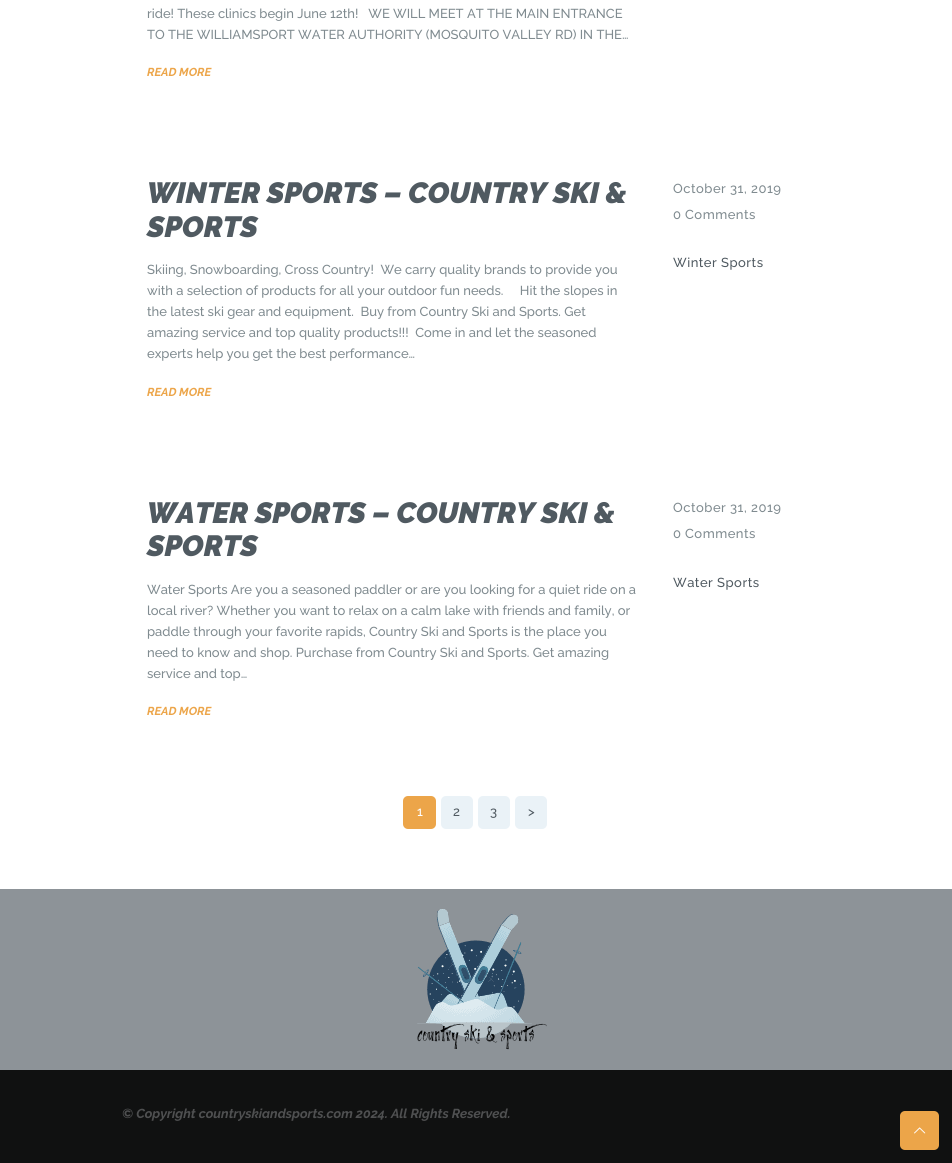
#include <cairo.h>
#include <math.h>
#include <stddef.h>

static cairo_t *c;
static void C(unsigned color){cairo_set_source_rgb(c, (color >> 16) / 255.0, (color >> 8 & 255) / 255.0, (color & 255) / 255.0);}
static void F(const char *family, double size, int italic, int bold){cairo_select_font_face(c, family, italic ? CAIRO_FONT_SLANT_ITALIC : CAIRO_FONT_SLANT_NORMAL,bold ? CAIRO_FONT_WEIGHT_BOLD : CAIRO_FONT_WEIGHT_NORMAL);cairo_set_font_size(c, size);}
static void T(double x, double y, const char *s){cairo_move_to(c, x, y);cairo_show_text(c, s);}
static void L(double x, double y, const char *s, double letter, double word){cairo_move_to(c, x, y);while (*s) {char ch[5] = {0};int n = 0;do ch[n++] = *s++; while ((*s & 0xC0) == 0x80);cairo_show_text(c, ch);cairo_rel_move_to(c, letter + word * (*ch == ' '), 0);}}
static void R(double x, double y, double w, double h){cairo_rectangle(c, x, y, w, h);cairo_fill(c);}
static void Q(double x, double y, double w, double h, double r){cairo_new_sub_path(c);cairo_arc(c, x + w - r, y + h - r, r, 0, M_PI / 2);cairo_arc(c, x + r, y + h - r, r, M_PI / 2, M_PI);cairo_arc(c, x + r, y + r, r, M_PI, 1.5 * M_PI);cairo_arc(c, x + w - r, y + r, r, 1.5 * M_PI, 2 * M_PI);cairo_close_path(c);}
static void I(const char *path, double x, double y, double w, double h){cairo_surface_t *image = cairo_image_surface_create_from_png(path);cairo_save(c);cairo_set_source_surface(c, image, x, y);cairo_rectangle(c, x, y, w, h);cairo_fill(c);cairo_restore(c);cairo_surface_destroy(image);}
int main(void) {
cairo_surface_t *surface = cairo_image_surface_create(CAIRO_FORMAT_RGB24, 952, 1163);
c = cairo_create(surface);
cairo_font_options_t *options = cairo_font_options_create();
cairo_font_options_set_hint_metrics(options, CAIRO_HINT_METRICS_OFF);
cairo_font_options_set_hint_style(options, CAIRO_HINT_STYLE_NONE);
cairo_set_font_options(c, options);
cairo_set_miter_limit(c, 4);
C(0xffffff);
cairo_paint(c);
F("Raleway Medium",13,0,0);
C(0x808b90);
T(147,18,"ride! These clinics begin June 12th!   WE WILL MEET AT THE MAIN ENTRANCE");
T(147,39,"TO THE WILLIAMSPORT WATER AUTHORITY (MOSQUITO VALLEY RD) IN THE…");
F("Raleway",11.5,1,1);
C(0xeca549);
T(147,76,"READ MORE");
F("Raleway Black",29.25,1,0);
C(0x505a61);
T(147,203,"WINTER SPORTS – COUNTRY SKI &");
T(147,237,"SPORTS");
F("Raleway Medium",13,0,0);
C(0x808b90);
T(147,274,"Skiing, Snowboarding, Cross Country!  We carry quality brands to provide you");
T(147,295,"with a selection of products for all your outdoor fun needs.     Hit the slopes in");
T(147,316,"the latest ski gear and equipment.  Buy from Country Ski and Sports. Get");
T(147,337,"amazing service and top quality products!!!  Come in and let the seasoned");
T(147,358,"experts help you get the best performance…");
F("Raleway",11.5,1,1);
C(0xeca549);
T(147,396,"READ MORE");
F("Raleway Medium",13,0,0);
C(0x808b90);
L(673,193,"October 31, 2019",.5,0);
L(673,219,"0",.5,0);
L(685,219,"Comments",.5,0);
C(0x505a61);
L(673,267,"Winter Sports",.5,0);
F("Raleway Black",29.25,1,0);
T(147,523,"WATER SPORTS – COUNTRY SKI &");
T(147,556,"SPORTS");
F("Raleway Medium",13,0,0);
C(0x808b90);
T(147,594,"Water Sports Are you a seasoned paddler or are you looking for a quiet ride on a");
T(147,615,"local river? Whether you want to relax on a calm lake with friends and family, or");
T(147,636,"paddle through your favorite rapids, Country Ski and Sports is the place you");
T(147,657,"need to know and shop. Purchase from Country Ski and Sports. Get amazing");
T(147,678,"service and top…");
F("Raleway",11.5,1,1);
C(0xeca549);
T(147,715,"READ MORE");
F("Raleway Medium",13,0,0);
C(0x808b90);
L(673,512,"October 31, 2019",.5,0);
L(673,538,"0",.5,0);
L(685,538,"Comments",.5,0);
C(0x505a61);
L(673,587,"Water Sports",.5,0);
C(0xeca549);
Q(403,796,33,33,5);
cairo_fill(c);
C(0xffffff);
T(417,816,"1");
C(0xeaf2f7);
Q(441,796,32,33,5);
cairo_fill(c);
C(0x505a61);
T(453,816,"2");
C(0xeaf2f7);
Q(478,796,32,33,5);
cairo_fill(c);
C(0x505a61);
T(490,816,"3");
C(0xeaf2f7);
Q(515,796,32,33,5);
cairo_fill(c);
C(0x505a61);
T(528,816,">");
C(0x8d9398);
R(0,889,952,181);
I("1.png",417,909,130,141);
C(0x101111);
R(0,1070,952,93);
F("Raleway",13,1,1);
C(0x4f5051);
T(122,1118,"© Copyright countryskiandsports.com 2024. All Rights Reserved.");
C(0xeca549);
Q(900,1111,39,39,5);
cairo_fill(c);
I("2.png",914,1127,12,7);
cairo_surface_write_to_png(surface, "o.png");
cairo_font_options_destroy(options);
cairo_destroy(c);
cairo_surface_destroy(surface);
return 0;
}
